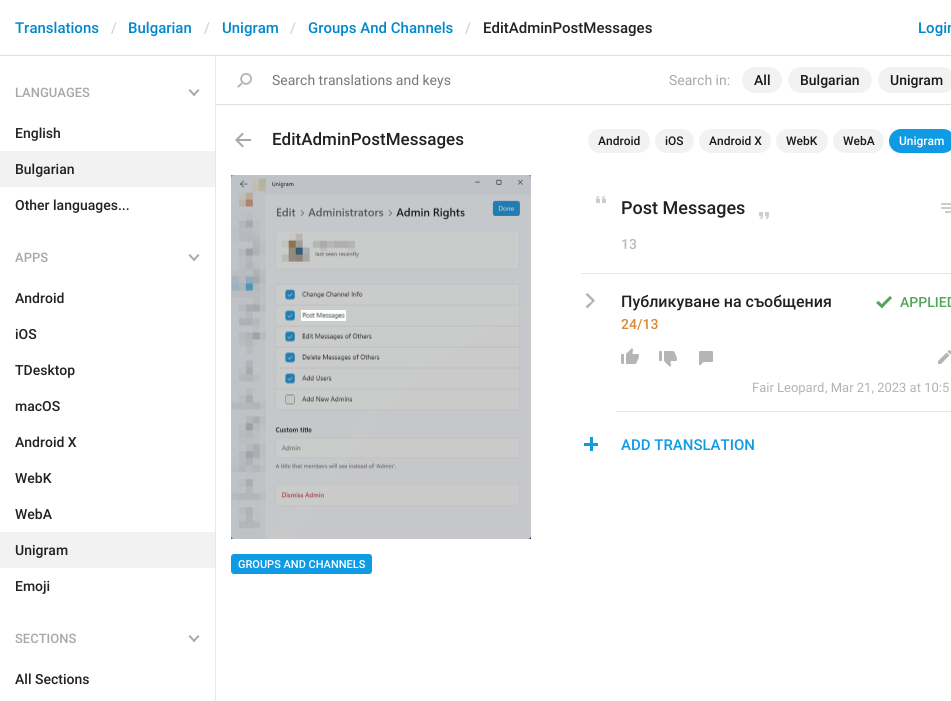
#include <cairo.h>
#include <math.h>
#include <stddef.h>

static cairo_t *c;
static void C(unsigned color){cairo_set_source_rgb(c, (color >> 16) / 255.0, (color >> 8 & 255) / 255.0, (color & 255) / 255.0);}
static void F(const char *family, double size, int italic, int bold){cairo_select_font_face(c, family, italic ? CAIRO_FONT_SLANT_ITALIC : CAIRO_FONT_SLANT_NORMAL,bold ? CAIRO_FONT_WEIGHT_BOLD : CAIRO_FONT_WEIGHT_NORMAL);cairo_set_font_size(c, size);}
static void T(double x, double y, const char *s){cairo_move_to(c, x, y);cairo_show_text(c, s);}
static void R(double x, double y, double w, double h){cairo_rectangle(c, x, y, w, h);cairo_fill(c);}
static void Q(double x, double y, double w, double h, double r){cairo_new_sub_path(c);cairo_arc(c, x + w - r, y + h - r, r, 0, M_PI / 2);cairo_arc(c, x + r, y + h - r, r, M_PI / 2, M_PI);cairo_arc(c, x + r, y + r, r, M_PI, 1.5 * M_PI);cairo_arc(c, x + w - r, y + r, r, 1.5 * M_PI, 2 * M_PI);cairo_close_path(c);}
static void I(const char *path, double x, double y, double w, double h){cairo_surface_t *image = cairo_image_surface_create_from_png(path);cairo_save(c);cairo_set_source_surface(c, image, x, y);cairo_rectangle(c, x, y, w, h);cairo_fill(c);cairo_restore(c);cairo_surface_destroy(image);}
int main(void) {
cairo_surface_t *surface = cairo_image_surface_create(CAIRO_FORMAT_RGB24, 951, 701);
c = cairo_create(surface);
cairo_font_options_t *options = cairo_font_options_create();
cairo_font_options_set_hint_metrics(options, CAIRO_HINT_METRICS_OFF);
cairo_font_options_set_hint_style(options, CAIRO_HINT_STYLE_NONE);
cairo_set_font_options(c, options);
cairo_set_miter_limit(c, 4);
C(0xffffff);
cairo_paint(c);
C(0xe0e0e0);
R(0,55,951,1);
F("Roboto Medium",15,0,0);
C(0x0088cc);
T(15,33,"Translations");
C(0xd4d4d4);
T(111,33,"/");
C(0x0088cc);
T(128,33,"Bulgarian");
C(0xd4d4d4);
T(204,33,"/");
C(0x0088cc);
T(222,33,"Unigram");
C(0xd4d4d4);
T(290,33,"/");
C(0x0088cc);
T(308,33,"Groups And Channels");
C(0xd4d4d4);
T(465,33,"/");
C(0x222222);
T(483,33,"EditAdminPostMessages");
C(0x0088cc);
T(918,33,"Login");
C(0xe0e0e0);
R(216,104,735,1);
I("1.png",237,73,15,15);
F("Roboto",14,0,0);
C(0x777777);
T(272,85,"Search translations and keys");
C(0xa8a8a8);
T(669,85,"Search in:");
C(0xf2f2f2);
Q(742,67,40,26,13);
cairo_fill(c);
F("Roboto Medium",14,0,0);
C(0x1a1a1a);
T(754,85,"All");
C(0xf2f2f2);
Q(788,67,84,26,13);
cairo_fill(c);
C(0x1a1a1a);
T(800,85,"Bulgarian");
C(0xf2f2f2);
Q(878,67,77,26,13);
cairo_fill(c);
C(0x1a1a1a);
T(890,85,"Unigram");
F("Roboto Medium",13,0,0);
C(0xa8a8a8);
T(15,97,"LANGUAGES");
cairo_new_path(c);
cairo_move_to(c,194,96);
cairo_line_to(c,188.5,90.5);
cairo_line_to(c,190,89);
cairo_line_to(c,195.5,95);
cairo_close_path(c);
cairo_fill(c);
cairo_new_path(c);
cairo_move_to(c,194,96);
cairo_line_to(c,192.5,95);
cairo_line_to(c,198,89);
cairo_line_to(c,199.5,90.5);
cairo_close_path(c);
cairo_fill(c);
F("Roboto Medium",14,0,0);
C(0x222222);
T(15,138,"English");
C(0xf2f2f2);
R(0,151,215,36);
C(0x222222);
T(15,174,"Bulgarian");
T(15,210,"Other languages...");
F("Roboto Medium",13,0,0);
C(0xa8a8a8);
T(15,262,"APPS");
cairo_new_path(c);
cairo_move_to(c,194,261);
cairo_line_to(c,188.5,255.5);
cairo_line_to(c,190,254);
cairo_line_to(c,195.5,260);
cairo_close_path(c);
cairo_fill(c);
cairo_new_path(c);
cairo_move_to(c,194,261);
cairo_line_to(c,192.5,260);
cairo_line_to(c,198,254);
cairo_line_to(c,199.5,255.5);
cairo_close_path(c);
cairo_fill(c);
F("Roboto Medium",14,0,0);
C(0x222222);
T(15,303,"Android");
T(15,339,"iOS");
T(15,375,"TDesktop");
T(15,411,"macOS");
T(15,447,"Android X");
T(15,483,"WebK");
T(15,519,"WebA");
C(0xf2f2f2);
R(0,532,215,36);
C(0x222222);
T(15,555,"Unigram");
T(15,591,"Emoji");
F("Roboto Medium",13,0,0);
C(0xa8a8a8);
T(15,643,"SECTIONS");
cairo_new_path(c);
cairo_move_to(c,194,642);
cairo_line_to(c,188.5,636.5);
cairo_line_to(c,190,635);
cairo_line_to(c,195.5,641);
cairo_close_path(c);
cairo_fill(c);
cairo_new_path(c);
cairo_move_to(c,194,642);
cairo_line_to(c,192.5,641);
cairo_line_to(c,198,635);
cairo_line_to(c,199.5,636.5);
cairo_close_path(c);
cairo_fill(c);
F("Roboto Medium",14,0,0);
C(0x222222);
T(15,684,"All Sections");
C(0xe7e7e7);
R(215,56,1,645);
I("2.png",235,133,16,14);
F("Roboto Medium",17,0,0);
C(0x222222);
T(272,145,"EditAdminPostMessages");
C(0xf2f2f2);
Q(588,129,62,24,12);
cairo_fill(c);
F("Roboto Medium",12,0,0);
C(0x1a1a1a);
T(598,145,"Android");
C(0xf2f2f2);
Q(655,129,39,24,12);
cairo_fill(c);
C(0x1a1a1a);
T(665,145,"iOS");
C(0xf2f2f2);
Q(699,129,72,24,12);
cairo_fill(c);
C(0x1a1a1a);
T(709,145,"Android X");
C(0xf2f2f2);
Q(776,129,52,24,12);
cairo_fill(c);
C(0x1a1a1a);
T(786,145,"WebK");
C(0xf2f2f2);
Q(833,129,51,24,12);
cairo_fill(c);
C(0x1a1a1a);
T(843,145,"WebA");
C(0x0f9ae4);
Q(889,129,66,24,12);
cairo_fill(c);
C(0xffffff);
T(899,145,"Unigram");
I("3.png",596,196,10,7);
F("Roboto Medium",18,0,0);
C(0x222222);
T(621,214,"Post Messages");
I("4.png",759,212,10,7);
I("5.png",941,203,10,10);
F("Roboto Medium",14,0,0);
C(0xbbbbbb);
T(621,249,"13");
C(0xe7e7e7);
R(581,273,370,1);
cairo_new_path(c);
cairo_move_to(c,616,411);
cairo_line_to(c,616,412);
cairo_line_to(c,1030,412);
cairo_line_to(c,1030,275);
cairo_line_to(c,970,275);
cairo_line_to(c,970,411);
cairo_close_path(c);
cairo_fill(c);
C(0xb3b3b3);
cairo_new_path(c);
cairo_move_to(c,592,301);
cairo_line_to(c,585.5,306.5);
cairo_line_to(c,587.5,308.5);
cairo_line_to(c,595,300.5);
cairo_line_to(c,587.5,293);
cairo_line_to(c,585.5,294.5);
cairo_close_path(c);
cairo_fill(c);
F("Roboto Medium",16,0,0);
C(0x222222);
T(621,307,"Публикуване на съобщения");
F("Roboto Medium",14,0,0);
C(0xde8833);
T(621,329,"24/13");
I("6.png",621,348,18,16);
I("7.png",659,351,18,16);
I("8.png",699,351,14,14);
I("9.png",938,350,13,14);
F("Roboto",13,0,0);
C(0xb3b3b3);
T(752,392,"Fair Leopard");
T(825,392,", Mar 21, 2023 at 10:5");
I("10.png",876,296,16,13);
F("Roboto Medium",14,0,0);
C(0x51a657);
T(900,307,"APPLIED");
C(0x0f9ae4);
R(584,443,14,3);
R(590,437,3,14);
F("Roboto Medium",15,0,0);
T(621,450,"ADD TRANSLATION");
I("11.png",231,175,300,364);
I("12.png",301,310,45,11);
Q(231,554,141,20,3);
cairo_fill(c);
F("Roboto Medium",11,0,0);
C(0xffffff);
T(238,568,"GROUPS AND CHANNELS");
cairo_surface_write_to_png(surface, "o.png");
cairo_font_options_destroy(options);
cairo_destroy(c);
cairo_surface_destroy(surface);
return 0;
}
